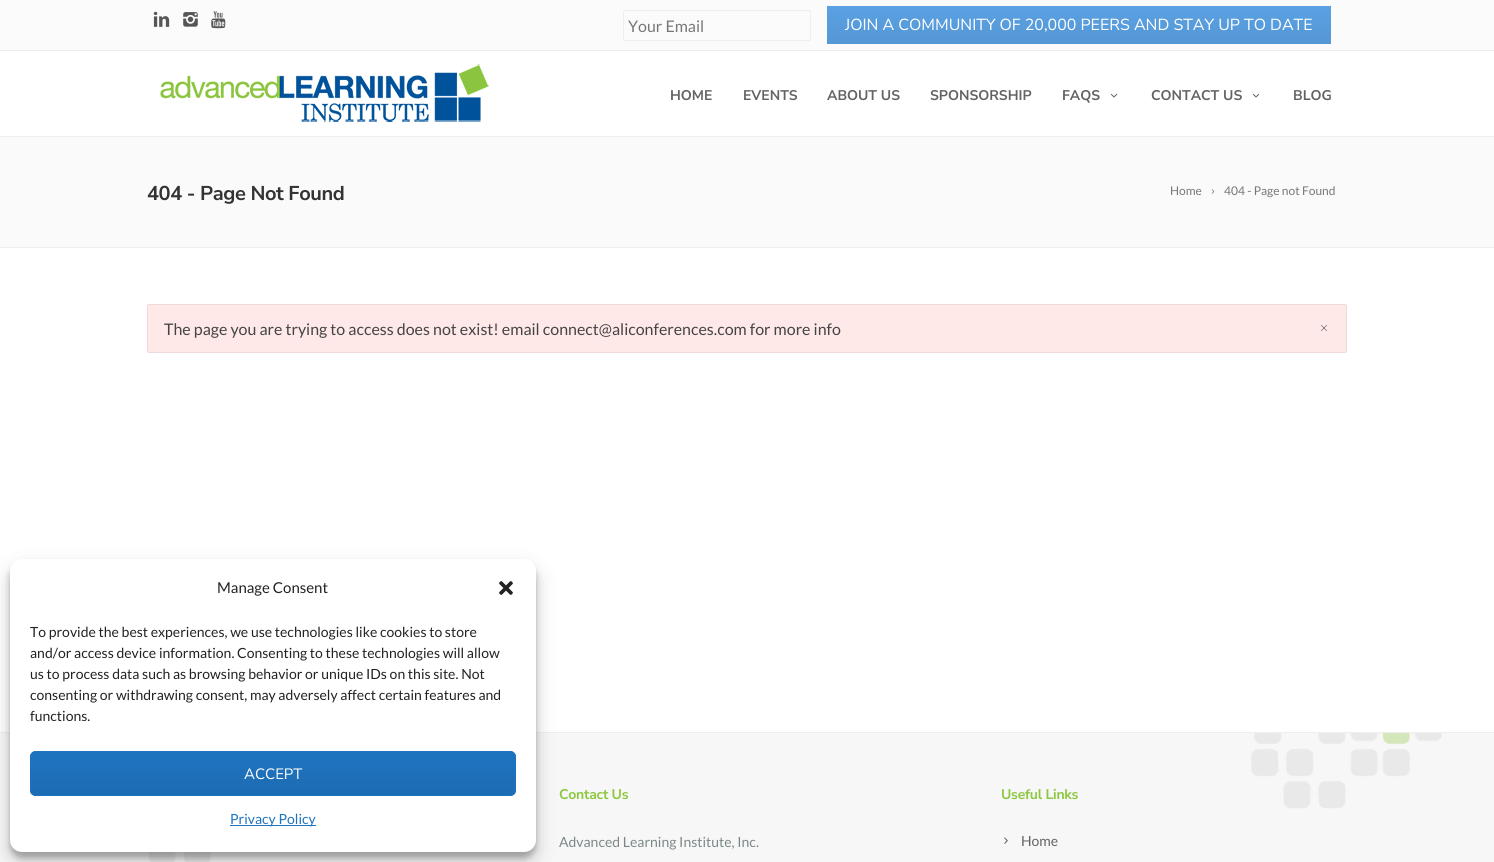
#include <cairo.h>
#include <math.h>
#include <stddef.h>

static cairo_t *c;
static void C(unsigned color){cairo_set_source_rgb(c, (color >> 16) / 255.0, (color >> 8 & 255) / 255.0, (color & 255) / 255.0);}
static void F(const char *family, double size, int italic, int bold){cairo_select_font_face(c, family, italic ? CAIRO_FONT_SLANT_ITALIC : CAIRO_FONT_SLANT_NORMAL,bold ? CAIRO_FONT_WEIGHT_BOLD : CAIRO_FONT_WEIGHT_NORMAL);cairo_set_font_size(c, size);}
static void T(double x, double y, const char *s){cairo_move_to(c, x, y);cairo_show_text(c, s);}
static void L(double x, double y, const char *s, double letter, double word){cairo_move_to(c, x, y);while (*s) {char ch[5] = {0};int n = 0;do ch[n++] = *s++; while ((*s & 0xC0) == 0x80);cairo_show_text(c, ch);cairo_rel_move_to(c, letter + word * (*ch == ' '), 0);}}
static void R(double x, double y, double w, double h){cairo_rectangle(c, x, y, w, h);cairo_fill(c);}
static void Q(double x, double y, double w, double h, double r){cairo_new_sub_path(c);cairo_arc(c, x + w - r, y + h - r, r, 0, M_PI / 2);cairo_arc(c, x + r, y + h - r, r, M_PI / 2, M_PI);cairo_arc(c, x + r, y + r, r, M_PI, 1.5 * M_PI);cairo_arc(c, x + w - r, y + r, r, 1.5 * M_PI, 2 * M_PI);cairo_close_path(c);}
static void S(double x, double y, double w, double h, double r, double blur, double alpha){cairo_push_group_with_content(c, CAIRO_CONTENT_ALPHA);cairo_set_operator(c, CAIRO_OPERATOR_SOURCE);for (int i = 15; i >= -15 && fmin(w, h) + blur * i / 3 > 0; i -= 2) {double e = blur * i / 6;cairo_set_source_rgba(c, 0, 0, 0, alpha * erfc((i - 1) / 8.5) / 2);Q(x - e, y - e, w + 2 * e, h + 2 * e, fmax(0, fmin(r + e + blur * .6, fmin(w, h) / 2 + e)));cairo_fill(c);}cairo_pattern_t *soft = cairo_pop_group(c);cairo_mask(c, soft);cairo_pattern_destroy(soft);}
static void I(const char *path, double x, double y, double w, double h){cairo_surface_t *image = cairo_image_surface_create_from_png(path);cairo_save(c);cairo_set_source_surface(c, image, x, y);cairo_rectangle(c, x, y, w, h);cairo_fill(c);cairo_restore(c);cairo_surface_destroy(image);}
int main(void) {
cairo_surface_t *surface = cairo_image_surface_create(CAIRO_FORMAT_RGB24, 1494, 862);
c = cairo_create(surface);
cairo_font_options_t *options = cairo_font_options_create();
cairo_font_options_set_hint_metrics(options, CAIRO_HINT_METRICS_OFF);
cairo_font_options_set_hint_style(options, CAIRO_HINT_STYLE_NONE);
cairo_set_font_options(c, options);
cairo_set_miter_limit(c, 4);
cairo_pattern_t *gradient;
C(0xffffff);
cairo_paint(c);
cairo_rectangle(c,-.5,-.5,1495,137);
C(0xeeeeee);
cairo_set_line_width(c,1);
cairo_stroke(c);
C(0xfbfbfb);
R(0,0,1494,50);
C(0xeeeeee);
R(0,50,1494,1);
I("1.png",153,11,17,16);
I("2.png",183,12,15,15);
I("3.png",211,11,15,18);
Q(623.5,10.5,187,30,1.5);
cairo_stroke(c);
F("Lato",16,0,0);
C(0x777777);
T(628,32,"Your Email");
gradient = cairo_pattern_create_linear(1079,6,1079,44);
cairo_pattern_add_color_stop_rgba(gradient,0,0.353,0.631,0.89,1);
cairo_pattern_add_color_stop_rgba(gradient,1,0.333,0.592,0.835,1);
cairo_set_source(c,gradient);
cairo_pattern_destroy(gradient);
R(827,6,504,38);
F("Nunito Sans",16,0,0);
C(0xffffff);
T(845,30,"JOIN A COMMUNITY OF 20,000 PEERS AND STAY UP TO DATE");
I("4.png",160,64,329,58);
F("Nunito Sans",14,0,1);
C(0x636363);
T(670,100,"HOME");
T(743,100,"EVENTS");
T(827,100,"ABOUT US");
T(930,100,"SPONSORSHIP");
T(1062,100,"FAQS");
I("5.png",1110,93,8,5);
T(1151,100,"CONTACT US");
I("5.png",1252,93,8,5);
T(1293,100,"BLOG");
C(0xfafafa);
R(0,137,1494,110);
C(0xeeeeee);
R(0,247,1494,1);
F("Nunito Sans",20,0,1);
C(0x333333);
L(147,200,"404 - Page Not Found",-.4,0);
F("Lato",12,0,0);
C(0x777777);
T(1170,195,"Home");
I("6.png",1211,189,4,5);
T(1224,195,"404 - Page not Found");
C(0xffe8e8);
Q(147.5,304.5,1199,48,1.5);
cairo_fill_preserve(c);
C(0xefd9d9);
cairo_stroke(c);
F("Lato",16,0,0);
C(0x444444);
T(164,335,"The page you are trying to access does not exist! email connect@aliconferences.com for more info");
I("7.png",1321,325,6,6);
C(0xf7f7f7);
R(0,733,1494,129);
I("8.png",20,733,1422,129);
C(0xeeeeee);
R(0,732,1494,1);
F("Nunito Sans",14,0,1);
C(0x8dc73f);
L(559,799,"Contact Us",-.25,0);
F("Lato",14,0,0);
C(0x7b8887);
T(559,847,"Advanced Learning Institute, Inc.");
F("Nunito Sans",14,0,1);
C(0x8dc73f);
L(1001,799,"Useful Links",-.25,0);
I("9.png",1004,837,4,7);
F("Lato",14,0,0);
C(0x636363);
T(1021,846,"Home");
C(0x000000);
S(10,565,526,293,12,3,.23);
S(10,569,526,293,12,10,.19);
C(0xffffff);
Q(10,559,526,293,12);
cairo_fill(c);
F("Lato",15,0,0);
C(0x222222);
T(217,593,"Manage Consent");
I("10.png",499,581,14,14);
F("Lato",14,0,0);
T(30,637,"To provide the best experiences, we use technologies like cookies to store");
T(30,658,"and/or access device information. Consenting to these technologies will allow");
T(30,679,"us to process data such as browsing behavior or unique IDs on this site. Not");
T(30,700,"consenting or withdrawing consent, may adversely affect certain features and");
T(30,721,"functions.");
C(0x1e73be);
Q(30,751,486,45,6);
cairo_fill(c);
gradient = cairo_pattern_create_linear(273,752,273,795);
cairo_pattern_add_color_stop_rgba(gradient,0,0,0,0,0);
cairo_pattern_add_color_stop_rgba(gradient,1,0,0,0,.06);
cairo_set_source(c,gradient);
cairo_pattern_destroy(gradient);
R(30,767,486,28);
Q(30.5,751.5,485,44,5.5);
C(0x1e73be);
cairo_stroke(c);
F("Nunito Sans",15,0,0);
C(0xffffff);
T(244,779,"ACCEPT");
C(0x1e73be);
R(230,825,86,1);
F("Lato",14,0,0);
T(230,824,"Privacy Policy");
cairo_surface_write_to_png(surface, "o.png");
cairo_font_options_destroy(options);
cairo_destroy(c);
cairo_surface_destroy(surface);
return 0;
}
